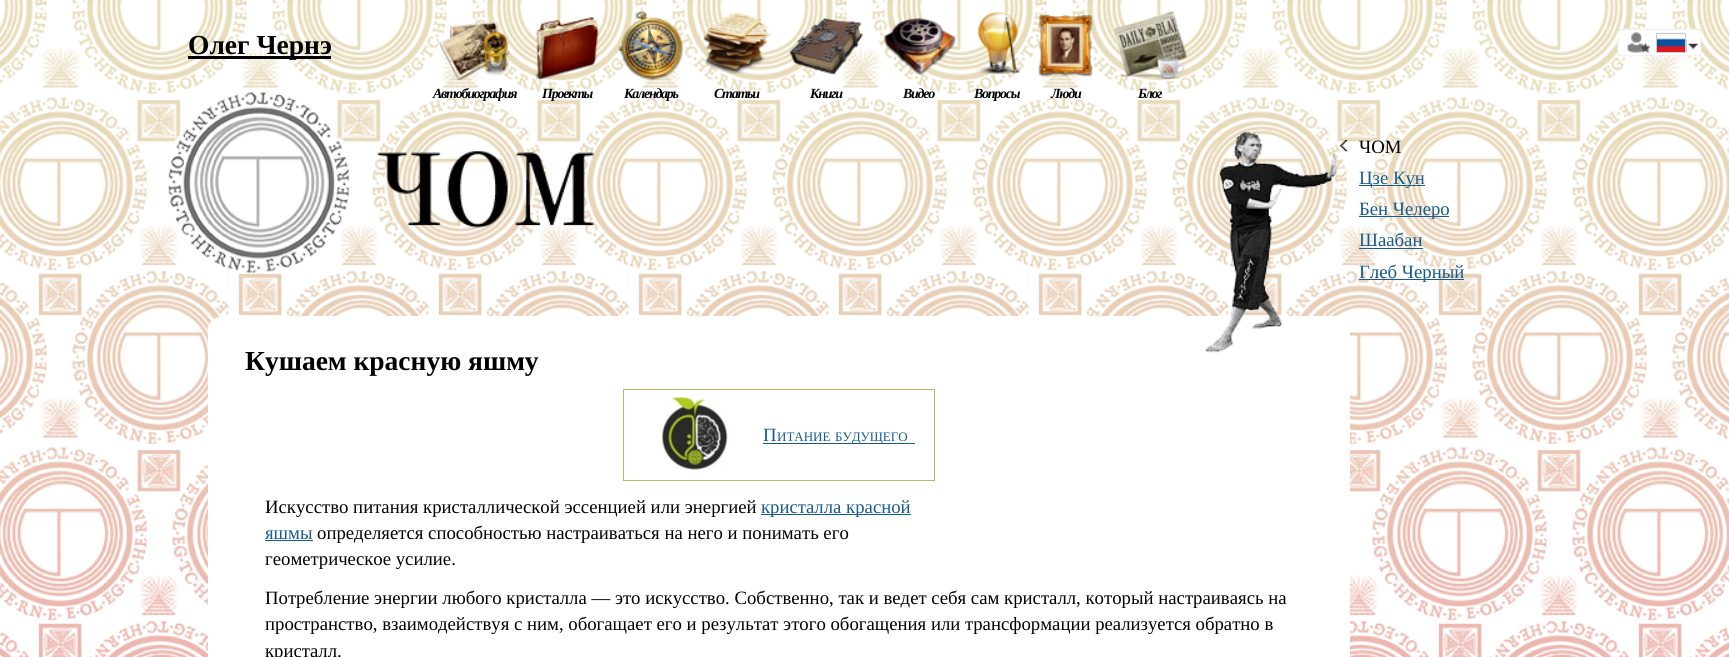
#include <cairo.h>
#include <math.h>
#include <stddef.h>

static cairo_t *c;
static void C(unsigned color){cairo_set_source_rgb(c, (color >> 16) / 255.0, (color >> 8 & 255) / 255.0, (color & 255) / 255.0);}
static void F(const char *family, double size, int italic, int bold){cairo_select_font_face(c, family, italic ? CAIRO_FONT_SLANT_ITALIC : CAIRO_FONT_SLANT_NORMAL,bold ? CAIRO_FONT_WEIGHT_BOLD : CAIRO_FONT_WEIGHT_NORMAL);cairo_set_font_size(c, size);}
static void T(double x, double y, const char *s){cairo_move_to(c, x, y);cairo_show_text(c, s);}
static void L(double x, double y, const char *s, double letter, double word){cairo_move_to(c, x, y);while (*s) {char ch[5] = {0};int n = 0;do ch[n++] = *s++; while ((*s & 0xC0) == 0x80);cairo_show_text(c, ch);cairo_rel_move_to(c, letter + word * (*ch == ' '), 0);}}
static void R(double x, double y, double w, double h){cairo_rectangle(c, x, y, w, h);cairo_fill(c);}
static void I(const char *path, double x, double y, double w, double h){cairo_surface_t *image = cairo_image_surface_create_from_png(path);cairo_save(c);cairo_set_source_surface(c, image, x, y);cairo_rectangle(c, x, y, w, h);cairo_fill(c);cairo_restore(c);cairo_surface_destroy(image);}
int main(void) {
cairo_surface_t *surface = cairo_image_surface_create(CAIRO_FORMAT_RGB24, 1729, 657);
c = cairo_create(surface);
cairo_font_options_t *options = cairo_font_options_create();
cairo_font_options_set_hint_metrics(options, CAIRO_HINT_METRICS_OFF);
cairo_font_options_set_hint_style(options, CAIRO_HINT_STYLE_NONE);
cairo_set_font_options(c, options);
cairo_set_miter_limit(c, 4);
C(0xffffff);
cairo_paint(c);
I("1.png",0,0,1729,657);
I("2.png",0,0,1729,657);
C(0x000000);
R(188,56,143,3);
F("Liberation Serif",27.5,0,1);
T(188,54,"Олег Чернэ");
I("3.png",1617,28,85,29);
I("4.png",1656,32,31,21);
cairo_rectangle(c,1656.5,33.5,29,19);
C(0xcccccc);
cairo_set_line_width(c,1);
cairo_stroke(c);
I("5.png",439,21,71,60);
F("Liberation Serif",14,1,1);
C(0x000000);
L(433,98,"Автобиография",-1.25,0);
I("6.png",535,17,64,63);
L(542,98,"Проекты",-1.25,0);
I("7.png",618,11,66,70);
L(624,98,"Календарь",-1.25,0);
I("8.png",703,12,68,62);
L(714,98,"Статьи",-1.25,0);
I("9.png",788,17,75,58);
L(810,98,"Книги",-1.25,0);
I("10.png",883,17,73,59);
L(903,98,"Видео",-1.25,0);
I("11.png",976,11,44,64);
L(974,98,"Вопросы",-1.25,0);
I("12.png",1038,14,55,63);
L(1051,98,"Люди",-1.25,0);
I("13.png",1114,11,74,68);
L(1138,98,"Блог",-1.25,0);
I("14.png",168,92,181,182);
I("15.png",377,151,217,77);
C(0xffffff);
R(208,330,1142,327);
R(221,316,1115,14);
C(0xfcf8f5);
R(1336,316,1,1);
I("16.png",1205,131,133,222);
I("17.png",1340,140,8,12);
F("Liberation Serif",18.75,0,0);
C(0x000000);
T(1359,153,"ЧОМ");
C(0x175c91);
R(1359,185,66,1);
T(1359,184,"Цзе Кун");
R(1359,216,90,1);
T(1359,215,"Бен Челеро");
T(1359,246,"Шаабан");
R(1359,248,64,1);
R(1359,279,105,1);
T(1359,278,"Глеб Черный");
I("18.png",207,316,14,14);
F("Liberation Serif",27.5,0,1);
C(0x000000);
T(245,370,"Кушаем красную яшму");
cairo_rectangle(c,623.5,389.5,311,91);
C(0xbdb76b);
cairo_stroke(c);
I("19.png",662,397,67,73);
F("Liberation Serif",18.75,0,0);
C(0x175c91);
T(763,441,"П");
F("Liberation Serif",13,0,0);
T(777,441,"ИТАНИЕ");
R(763,443,152,1);
T(835,441,"БУДУЩЕГО");
F("Liberation Serif",18.75,0,0);
C(0x000000);
T(265,513,"Искусство питания кристаллической эссенцией или энергией");
C(0x175c91);
R(761,514,150,1);
T(761,513,"кристалла красной");
T(265,539,"яшмы");
R(265,540,48,1);
C(0x000000);
T(317,539,"определяется способностью настраиваться на него и понимать его");
T(265,565,"геометрическое усилие.");
T(265,604,"Потребление энергии любого кристалла — это искусство. Собственно, так и ведет себя сам кристалл, который настраиваясь на");
T(265,630,"пространство, взаимодействуя с ним, обогащает его и результат этого обогащения или трансформации реализуется обратно в");
T(265,657,"кристалл.");
cairo_surface_write_to_png(surface, "o.png");
cairo_font_options_destroy(options);
cairo_destroy(c);
cairo_surface_destroy(surface);
return 0;
}
